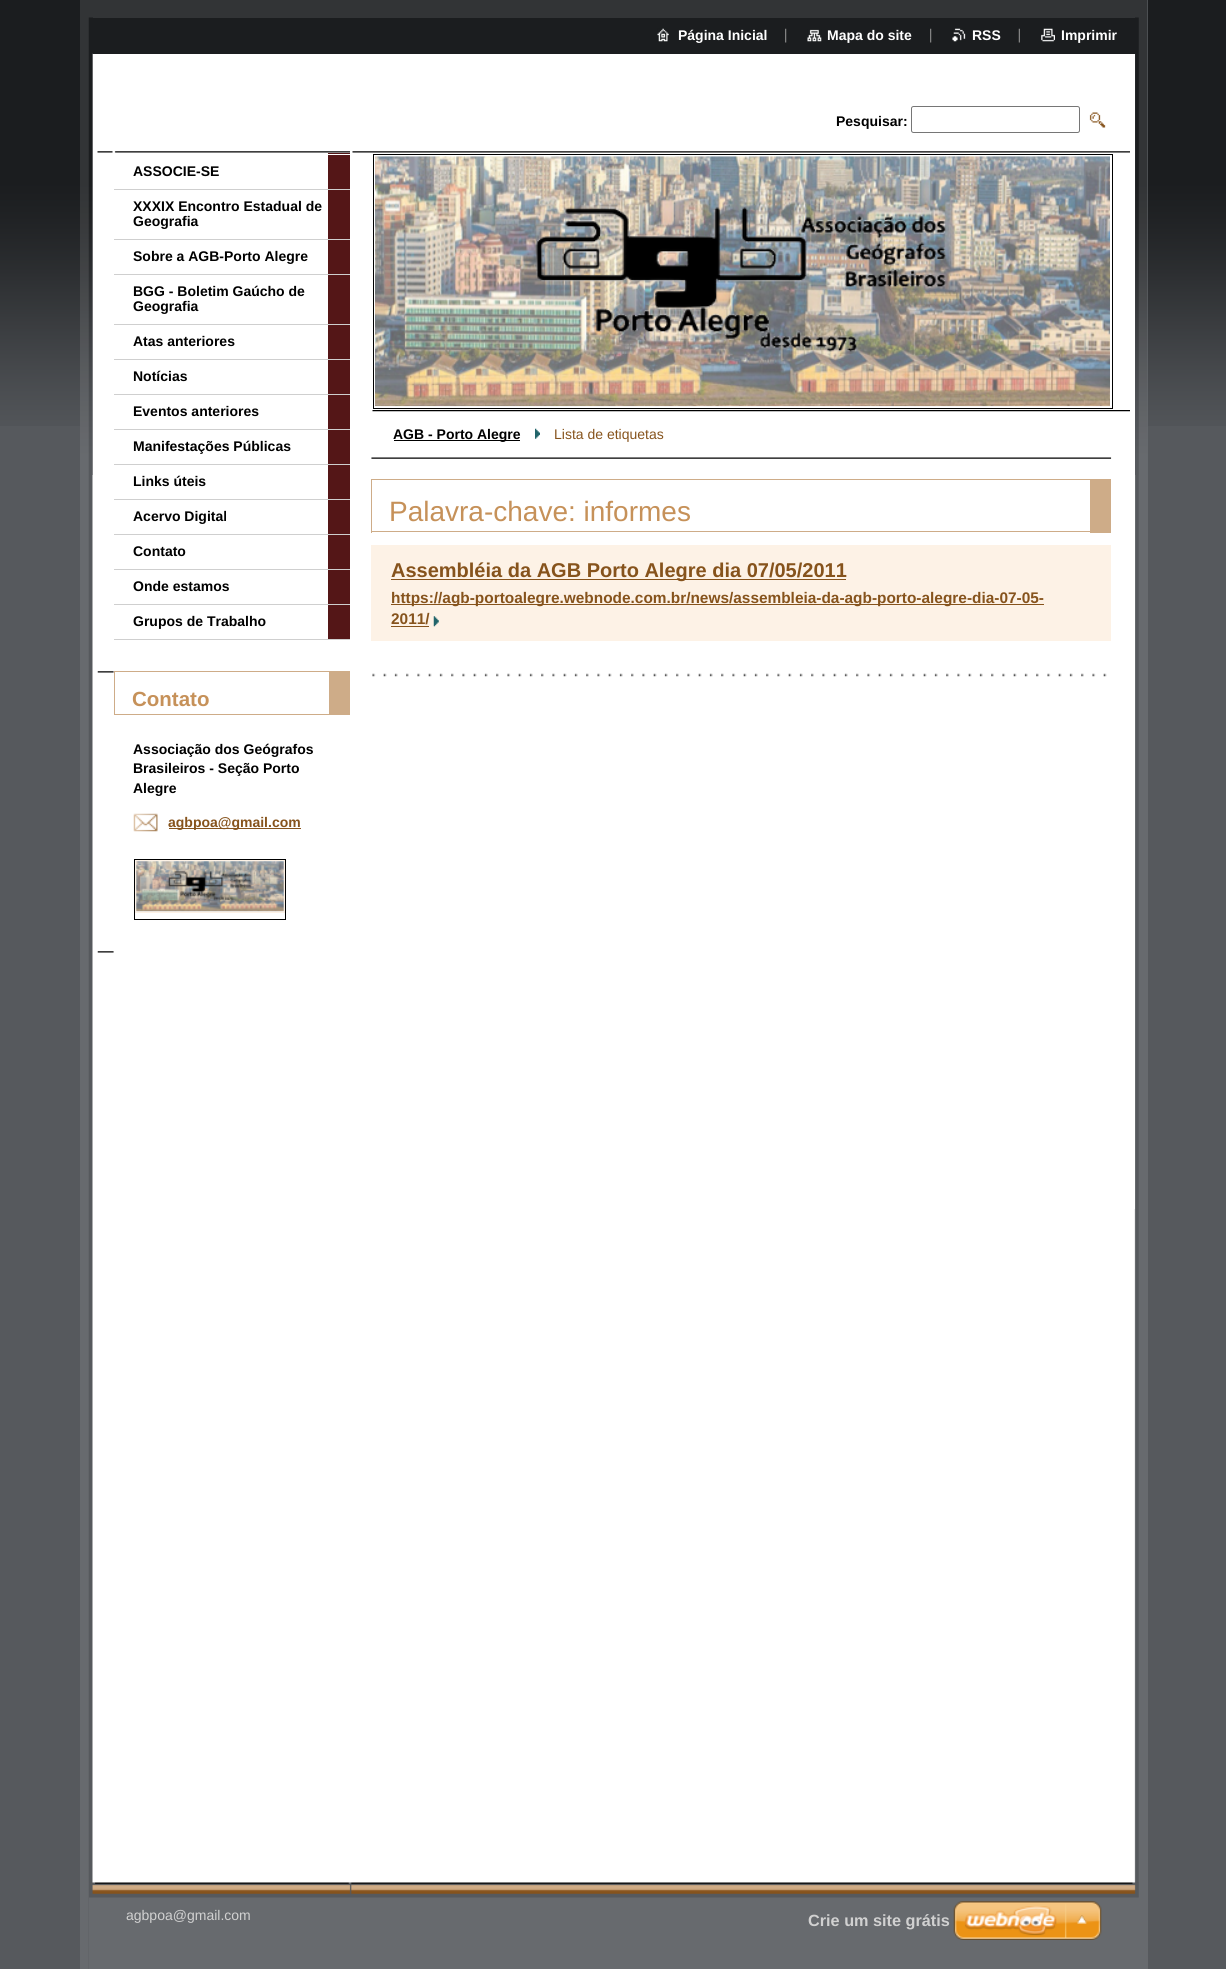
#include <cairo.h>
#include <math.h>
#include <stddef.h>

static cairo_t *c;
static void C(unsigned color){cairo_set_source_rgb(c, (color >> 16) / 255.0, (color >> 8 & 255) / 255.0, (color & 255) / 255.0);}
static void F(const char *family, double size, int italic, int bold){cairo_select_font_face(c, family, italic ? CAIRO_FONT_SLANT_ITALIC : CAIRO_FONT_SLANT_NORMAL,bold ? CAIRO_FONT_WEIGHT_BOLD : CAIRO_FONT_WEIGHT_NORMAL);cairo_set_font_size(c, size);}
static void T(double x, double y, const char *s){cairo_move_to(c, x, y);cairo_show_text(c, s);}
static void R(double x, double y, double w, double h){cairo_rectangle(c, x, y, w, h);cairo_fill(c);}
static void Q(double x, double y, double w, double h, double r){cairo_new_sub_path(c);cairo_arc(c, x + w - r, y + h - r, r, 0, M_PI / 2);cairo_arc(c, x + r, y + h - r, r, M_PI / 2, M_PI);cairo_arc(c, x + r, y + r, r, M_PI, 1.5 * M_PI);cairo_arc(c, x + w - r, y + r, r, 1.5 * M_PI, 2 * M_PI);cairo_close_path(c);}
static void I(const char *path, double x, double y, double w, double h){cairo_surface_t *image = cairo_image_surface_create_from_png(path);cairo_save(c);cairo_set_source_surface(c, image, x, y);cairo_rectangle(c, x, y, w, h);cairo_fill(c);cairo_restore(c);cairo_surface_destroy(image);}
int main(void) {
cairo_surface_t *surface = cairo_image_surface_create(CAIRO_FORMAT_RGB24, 1226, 1969);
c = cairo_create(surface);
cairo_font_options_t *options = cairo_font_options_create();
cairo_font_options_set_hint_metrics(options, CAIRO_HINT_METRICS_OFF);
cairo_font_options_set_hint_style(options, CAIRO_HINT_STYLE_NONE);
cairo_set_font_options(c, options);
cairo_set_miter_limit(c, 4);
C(0x56595d);
cairo_paint(c);
I("1.png",0,0,1226,426);
C(0x676a6e);
R(80,0,1068,1969);
I("2.png",88,53,1051,1916);
I("3.png",80,0,1068,475);
C(0xffffff);
R(1134,54,1,1155);
C(0x323436);
R(93,17,1042,1);
C(0x1b1d1f);
R(93,53,1042,1);
I("4.png",657,28,12,14);
F("Liberation Sans",14,0,1);
C(0xffffff);
T(678,40,"Página Inicial");
I("5.png",785,28,2,15);
I("6.png",807,29,15,13);
T(827,40,"Mapa do site");
I("5.png",930,28,2,15);
I("7.png",952,28,14,14);
T(972,40,"RSS");
I("8.png",1018,28,2,15);
I("9.png",1041,28,14,14);
T(1061,40,"Imprimir");
C(0x000000);
T(836,126,"Pesquisar:");
Q(911.5,106.5,168,26,2);
C(0x767676);
cairo_set_line_width(c,1);
cairo_stroke(c);
I("10.png",1089,112,17,16);
I("11.png",97,151,253,2);
C(0x541617);
R(328,153,22,486);
C(0xffffff);
R(328,154,22,1);
C(0xcfcfcf);
R(114,189,236,1);
C(0x000000);
T(133,176,"ASSOCIE-SE");
C(0xcfcfcf);
R(114,239,236,1);
C(0x000000);
T(133,211,"XXXIX Encontro Estadual de");
T(133,226,"Geografia");
C(0xcfcfcf);
R(114,274,236,1);
C(0x000000);
T(133,261,"Sobre a AGB-Porto Alegre");
C(0xcfcfcf);
R(114,324,236,1);
C(0x000000);
T(133,296,"BGG - Boletim Gaúcho de");
T(133,311,"Geografia");
C(0xcfcfcf);
R(114,359,236,1);
C(0x000000);
T(133,346,"Atas anteriores");
C(0xcfcfcf);
R(114,394,236,1);
C(0x000000);
T(133,381,"Notícias");
C(0xcfcfcf);
R(114,429,236,1);
C(0x000000);
T(133,416,"Eventos anteriores");
C(0xcfcfcf);
R(114,464,236,1);
C(0x000000);
T(133,451,"Manifestações Públicas");
C(0xcfcfcf);
R(114,499,236,1);
C(0x000000);
T(133,486,"Links úteis");
C(0xcfcfcf);
R(114,534,236,1);
C(0x000000);
T(133,521,"Acervo Digital");
C(0xcfcfcf);
R(114,569,236,1);
C(0x000000);
T(133,556,"Contato");
C(0xcfcfcf);
R(114,604,236,1);
C(0x000000);
T(133,591,"Onde estamos");
C(0xcfcfcf);
R(114,639,236,1);
C(0x000000);
T(133,626,"Grupos de Trabalho");
I("12.png",97,671,17,2);
C(0xceac88);
R(114,671,215,1);
R(329,671,21,43);
R(114,714,236,1);
R(114,671,1,44);
F("Liberation Sans",20.5,0,1);
C(0xc69159);
T(132,706,"Contato");
F("Liberation Sans",14,0,1);
C(0x000000);
T(133,754,"Associação dos Geógrafos");
T(133,773,"Brasileiros - Seção Porto");
T(133,793,"Alegre");
I("13.png",133,813,25,19);
C(0x86531c);
R(169,828,132,1);
T(168,827,"agbpoa@gmail.com");
cairo_rectangle(c,134.5,859.5,151,60);
C(0x000000);
cairo_stroke(c);
cairo_rectangle(c,135.5,860.5,149,52);
C(0xfdf2e6);
cairo_stroke(c);
I("14.png",136,861,148,51);
I("12.png",97,951,17,2);
I("15.png",352,151,778,2);
I("16.png",372,410,758,2);
cairo_rectangle(c,373.5,154.5,739,254);
C(0x000000);
cairo_stroke(c);
I("17.png",375,156,735,251);
I("18.png",371,457,741,2);
R(394,440,126,1);
T(393,439,"AGB - Porto Alegre");
I("19.png",535,428,5,11);
F("Liberation Sans",14,0,0);
C(0x86531c);
T(554,439,"Lista de etiquetas");
C(0xceac88);
R(371,479,719,1);
R(1090,479,21,54);
R(371,531,719,1);
R(371,479,1,54);
F("Liberation Sans",28,0,0);
C(0xc69159);
T(389,521,"Palavra-chave: informes");
C(0xfdf2e6);
R(371,545,740,96);
C(0x86531c);
R(391,579,455,1);
F("Liberation Sans",20,0,1);
T(391,577,"Assembléia da AGB Porto Alegre dia 07/05/2011");
R(391,604,653,1);
F("Liberation Sans",15.4,0,1);
T(391,603,"https://agb-portoalegre.webnode.com.br/news/assembleia-da-agb-porto-alegre-dia-07-05-");
T(391,624,"2011/");
R(391,626,38,1);
I("20.png",433,616,6,11);
I("21.png",372,673,735,4);
C(0x676a6e);
R(89,1883,1050,86);
I("22.png",89,1882,1050,16);
F("Liberation Sans",14,0,0);
C(0xd1d1d1);
T(126,1920,"agbpoa@gmail.com");
F("Liberation Sans",16.25,0,1);
T(808,1926,"Crie um site grátis");
I("23.png",953,1901,149,39);
cairo_surface_write_to_png(surface, "o.png");
cairo_font_options_destroy(options);
cairo_destroy(c);
cairo_surface_destroy(surface);
return 0;
}
